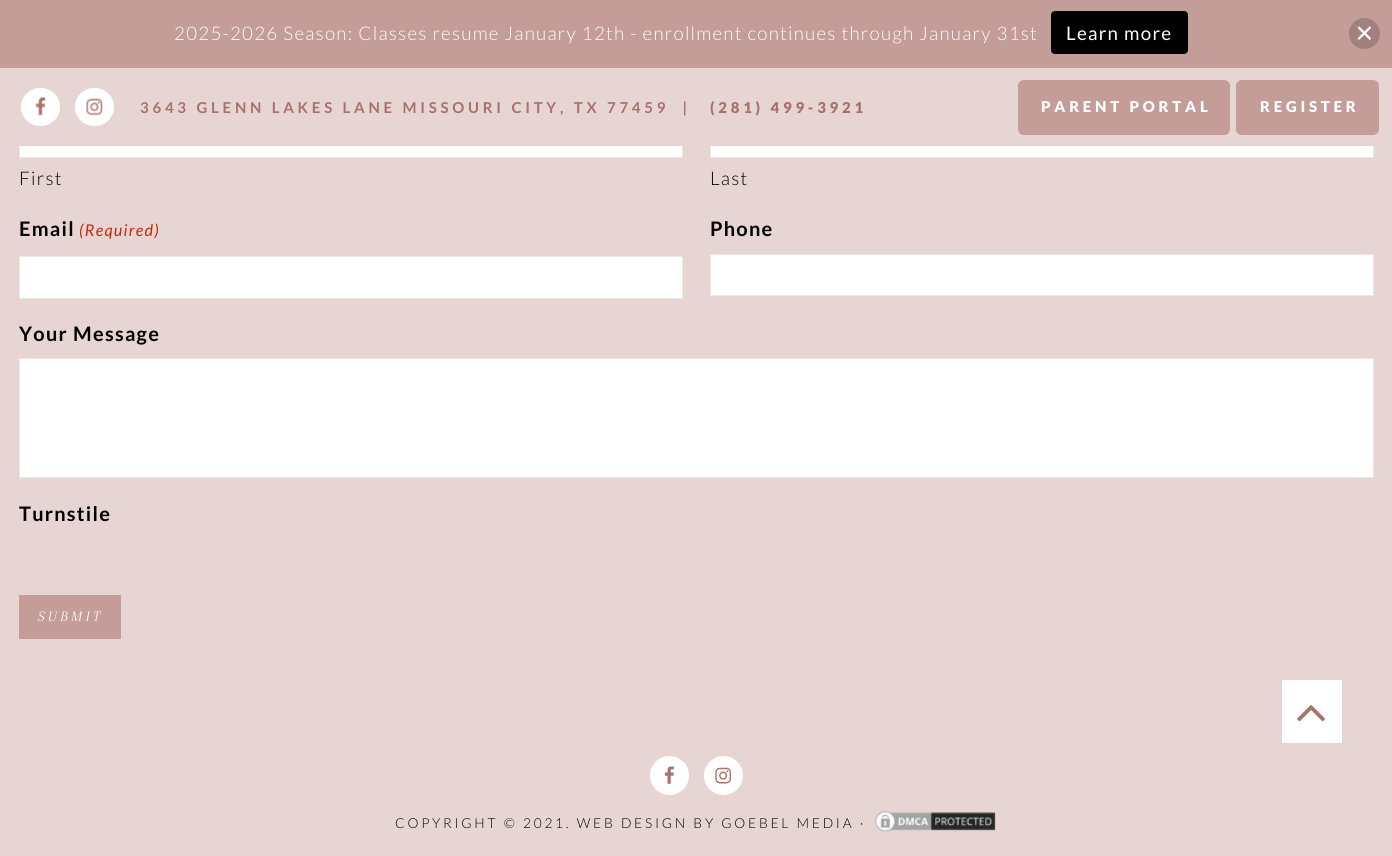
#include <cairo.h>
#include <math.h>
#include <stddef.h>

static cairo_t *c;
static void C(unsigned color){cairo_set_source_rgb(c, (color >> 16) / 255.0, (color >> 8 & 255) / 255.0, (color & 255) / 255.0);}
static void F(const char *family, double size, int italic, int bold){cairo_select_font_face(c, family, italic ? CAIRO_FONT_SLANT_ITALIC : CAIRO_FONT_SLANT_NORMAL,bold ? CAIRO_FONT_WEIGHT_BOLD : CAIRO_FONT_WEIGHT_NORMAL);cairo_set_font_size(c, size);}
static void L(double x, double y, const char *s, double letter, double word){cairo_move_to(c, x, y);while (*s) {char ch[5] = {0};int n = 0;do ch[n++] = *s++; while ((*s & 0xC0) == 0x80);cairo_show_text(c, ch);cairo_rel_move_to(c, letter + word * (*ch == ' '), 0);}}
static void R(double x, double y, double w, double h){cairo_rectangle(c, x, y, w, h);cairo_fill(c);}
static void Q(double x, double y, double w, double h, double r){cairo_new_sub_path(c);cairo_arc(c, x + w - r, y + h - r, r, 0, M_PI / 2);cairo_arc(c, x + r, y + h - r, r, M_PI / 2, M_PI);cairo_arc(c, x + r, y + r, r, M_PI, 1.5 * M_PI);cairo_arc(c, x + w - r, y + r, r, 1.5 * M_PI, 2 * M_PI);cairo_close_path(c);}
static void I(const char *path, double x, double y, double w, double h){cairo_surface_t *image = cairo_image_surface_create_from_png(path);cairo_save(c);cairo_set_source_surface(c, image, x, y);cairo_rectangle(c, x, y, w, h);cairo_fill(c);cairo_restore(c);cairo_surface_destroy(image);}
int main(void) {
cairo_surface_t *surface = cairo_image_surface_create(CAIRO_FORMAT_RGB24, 1392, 856);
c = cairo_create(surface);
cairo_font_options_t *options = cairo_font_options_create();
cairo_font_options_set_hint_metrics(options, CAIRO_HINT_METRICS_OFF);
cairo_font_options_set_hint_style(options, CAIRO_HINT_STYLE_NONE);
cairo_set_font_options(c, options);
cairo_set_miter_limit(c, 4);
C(0xe7d5d3);
cairo_paint(c);
C(0xc49c98);
R(0,0,1392,68);
F("Lato Light",18.75,0,0);
C(0xffffff);
L(174,40,"2025-2026 Season: Classes resume January 12th - enrollment continues through January 31st",1.25,0);
C(0x000000);
Q(1051,11,137,43,4);
cairo_fill(c);
F("Lato",18.75,0,0);
C(0xffffff);
L(1066,40,"Learn more",1.25,0);
C(0xa1807d);
cairo_new_path(c);
cairo_arc(c,1364.5,33.5,15.5,0,2 * M_PI);
cairo_fill(c);
I("1.png",1357,26,15,14);
C(0xffffff);
R(20,146,662,11);
cairo_rectangle(c,19.5,115.5,663,42);
C(0xe9e8e4);
cairo_set_line_width(c,1);
cairo_stroke(c);
C(0xffffff);
R(711,146,662,11);
cairo_rectangle(c,710.5,115.5,663,42);
C(0xe9e8e4);
cairo_stroke(c);
C(0xe7d5d3);
R(19,115,1355,31);
C(0xffffff);
Q(21,88,39,38,19);
cairo_fill(c);
I("2.png",35,97,11,19);
Q(75,88,39,38,19);
cairo_fill(c);
I("3.png",86,98,17,18);
F("Lato",15,0,1);
C(0xa8716c);
L(140,113,"3643 GLENN LAKES LANE MISSOURI CITY, TX 77459  |",3.75,0);
F("Lato Black",15,0,0);
L(710,113,"(281) 499-3921",3.75,0);
C(0xc49c98);
Q(1018,80,212,55,6);
cairo_fill(c);
C(0xffffff);
L(1041,112,"PARENT PORTAL",3.75,0);
C(0xc49c98);
Q(1236,80,143,55,6);
cairo_fill(c);
C(0xffffff);
L(1260,112,"REGISTER",3.75,0);
F("Lato Light",18.75,0,0);
C(0x000000);
L(19,185,"First",1.25,0);
L(710,185,"Last",1.25,0);
F("Lato",20,0,1);
L(19,236,"Email",1.25,0);
F("Lato",16.25,1,0);
C(0xc02b0a);
L(79,236,"(Required)",1.25,0);
C(0xffffff);
cairo_rectangle(c,19.5,256.5,663,42);
cairo_fill_preserve(c);
C(0xe9e8e4);
cairo_stroke(c);
F("Lato",20,0,1);
C(0x000000);
L(710,236,"Phone",1.25,0);
C(0xffffff);
cairo_rectangle(c,710.5,254.5,663,41);
cairo_fill_preserve(c);
C(0xe9e8e4);
cairo_stroke(c);
C(0x000000);
L(19,341,"Your Message",1.25,0);
C(0xffffff);
cairo_rectangle(c,19.5,358.5,1354,119);
cairo_fill_preserve(c);
C(0xe9e8e4);
cairo_stroke(c);
C(0x000000);
L(19,521,"Turnstile",1.25,0);
C(0xc49c98);
R(19,595,102,44);
F("Arapey",15,1,0);
C(0xffffff);
L(38,621,"SUBMIT",3,0);
R(1282,680,60,63);
I("4.png",1297,705,28,17);
cairo_arc(c,669.5,775.5,19.5,0,2 * M_PI);
cairo_fill(c);
I("5.png",664,766,10,18);
cairo_arc(c,723.5,775.5,19.5,0,2 * M_PI);
cairo_fill(c);
I("6.png",715,767,16,17);
F("Lato Light",13.75,0,0);
C(0x000000);
L(395,828,"COPYRIGHT © 2021. WEB DESIGN BY GOEBEL MEDIA ·",2.75,0);
I("7.png",875,811,121,21);
cairo_surface_write_to_png(surface, "o.png");
cairo_font_options_destroy(options);
cairo_destroy(c);
cairo_surface_destroy(surface);
return 0;
}
